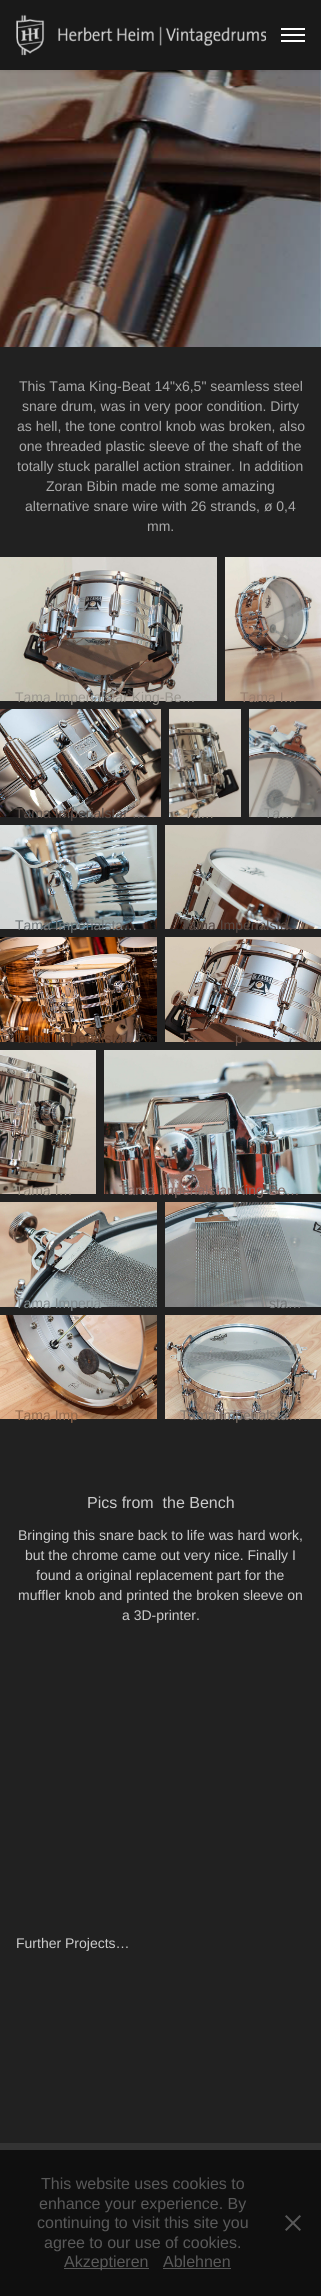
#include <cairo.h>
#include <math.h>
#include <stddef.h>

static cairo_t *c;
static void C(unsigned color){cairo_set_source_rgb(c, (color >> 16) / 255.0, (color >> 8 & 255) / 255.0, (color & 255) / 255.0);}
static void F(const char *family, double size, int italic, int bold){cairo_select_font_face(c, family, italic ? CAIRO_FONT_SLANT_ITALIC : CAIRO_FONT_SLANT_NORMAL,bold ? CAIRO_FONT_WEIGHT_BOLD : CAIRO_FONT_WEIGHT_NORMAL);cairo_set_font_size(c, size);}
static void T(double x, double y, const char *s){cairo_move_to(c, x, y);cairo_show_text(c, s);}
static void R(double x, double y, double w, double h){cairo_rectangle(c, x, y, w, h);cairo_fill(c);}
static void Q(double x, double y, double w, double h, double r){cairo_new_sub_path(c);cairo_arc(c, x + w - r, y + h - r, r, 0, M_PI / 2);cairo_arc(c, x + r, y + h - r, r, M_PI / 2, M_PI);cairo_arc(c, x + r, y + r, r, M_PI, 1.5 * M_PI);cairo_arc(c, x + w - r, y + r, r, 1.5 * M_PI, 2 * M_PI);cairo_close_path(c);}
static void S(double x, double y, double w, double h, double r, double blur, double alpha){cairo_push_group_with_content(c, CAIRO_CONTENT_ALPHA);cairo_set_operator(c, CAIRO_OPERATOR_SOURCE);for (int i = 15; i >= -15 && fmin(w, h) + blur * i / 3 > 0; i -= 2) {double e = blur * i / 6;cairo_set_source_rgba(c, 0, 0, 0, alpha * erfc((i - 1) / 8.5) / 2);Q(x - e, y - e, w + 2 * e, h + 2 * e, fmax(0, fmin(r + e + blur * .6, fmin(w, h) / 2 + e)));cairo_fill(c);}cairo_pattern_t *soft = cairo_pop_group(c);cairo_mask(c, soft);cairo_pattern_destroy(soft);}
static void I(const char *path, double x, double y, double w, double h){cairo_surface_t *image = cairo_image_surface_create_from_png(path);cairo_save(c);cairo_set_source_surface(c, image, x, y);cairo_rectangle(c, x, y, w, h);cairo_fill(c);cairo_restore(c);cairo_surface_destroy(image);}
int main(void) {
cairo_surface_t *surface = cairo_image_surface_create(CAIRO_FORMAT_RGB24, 321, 2296);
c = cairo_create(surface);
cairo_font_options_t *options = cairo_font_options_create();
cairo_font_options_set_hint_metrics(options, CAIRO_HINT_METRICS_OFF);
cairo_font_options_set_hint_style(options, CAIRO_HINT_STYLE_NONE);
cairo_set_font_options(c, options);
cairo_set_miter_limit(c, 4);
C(0xffffff);
cairo_paint(c);
I("2.png",0,70,321,277);
C(0x000000);
S(0,1,321,70,0,1.5,.1);
C(0x191919);
R(0,0,321,70);
I("1.png",16,14,250,42);
C(0xffffff);
R(281,28,24,2);
R(281,34,24,2);
R(281,40,24,2);
C(0x212121);
R(0,347,321,1796);
F("Liberation Sans",14,0,0);
C(0xa9a9a9);
T(19,391,"This Tama King-Beat 14\"x6,5\" seamless steel");
T(22,411,"snare drum, was in very poor condition. Dirty");
T(17,431,"as hell, the tone control knob was broken, also");
T(19,451,"one threaded plastic sleeve of the shaft of the");
T(17,471,"totally stuck parallel action strainer. In addition");
T(46,491,"Zoran Bibin made me some amazing");
T(25,511,"alternative snare wire with 26 strands, ø 0,4");
T(147,531,"mm.");
I("3.png",0,557,217,144);
C(0x9b978f);
T(15,702,"Tama Imperialstar King-Be…");
I("4.png",225,557,96,144);
C(0x99806f);
T(240,702,"Tama I…");
I("5.png",0,709,161,108);
C(0x594f4a);
T(15,818,"Tama Imperialstar …");
I("6.png",169,709,72,108);
C(0x93897b);
T(184,818,"Ta…");
I("7.png",249,709,72,108);
C(0x8b8c89);
T(264,818,"Ta…");
I("8.png",0,825,157,104);
C(0x707678);
T(15,930,"Tama Imperialsta…");
I("9.png",165,825,156,104);
C(0x564944);
T(180,930,"Tama Imperialsta…");
I("10.png",0,937,157,105);
C(0x603c27);
T(15,1043,"Tama Imperialsta…");
I("11.png",165,937,156,105);
C(0x695147);
T(180,1043,"T");
T(235,1043,"p");
I("12.png",0,1050,96,144);
C(0x93897b);
T(15,1195,"Tama I…");
I("13.png",104,1050,217,144);
C(0x836a65);
T(119,1195,"Tama Imperialstar King-Be…");
I("14.png",0,1202,157,105);
C(0x828b8e);
T(15,1308,"Tama Imperia");
I("15.png",165,1202,156,105);
C(0x76797a);
T(269,1308,"sta…");
I("16.png",0,1315,157,104);
C(0x946a4d);
T(15,1420,"Tama Imp");
I("17.png",165,1315,156,104);
C(0x7f736a);
T(180,1420,"Tama Imperialsta…");
F("Liberation Sans",16,0,0);
C(0xcccccc);
T(87,1508,"Pics from  the Bench");
F("Liberation Sans",14,0,0);
T(18,1540,"Bringing this snare back to life was hard work,");
T(25,1560,"but the chrome came out very nice. Finally I");
T(36,1580,"found a original replacement part for the");
T(18,1600,"muffler knob and printed the broken sleeve on");
T(122,1620,"a 3D-printer.");
T(16,1948,"Further Projects…");
C(0x333333);
R(0,2143,321,7);
C(0x0f0f0f);
R(0,2150,321,146);
F("Liberation Sans",16,0,0);
C(0x595959);
T(41,2189,"This website uses cookies to");
T(39,2209,"enhance your experience. By");
T(37,2228,"continuing to visit this site you");
T(44,2248,"agree to our use of cookies.");
R(64,2268,85,1);
T(64,2267,"Akzeptieren");
T(163,2267,"Ablehnen");
R(163,2268,68,1);
I("18.png",285,2215,16,16);
cairo_surface_write_to_png(surface, "o.png");
cairo_font_options_destroy(options);
cairo_destroy(c);
cairo_surface_destroy(surface);
return 0;
}
